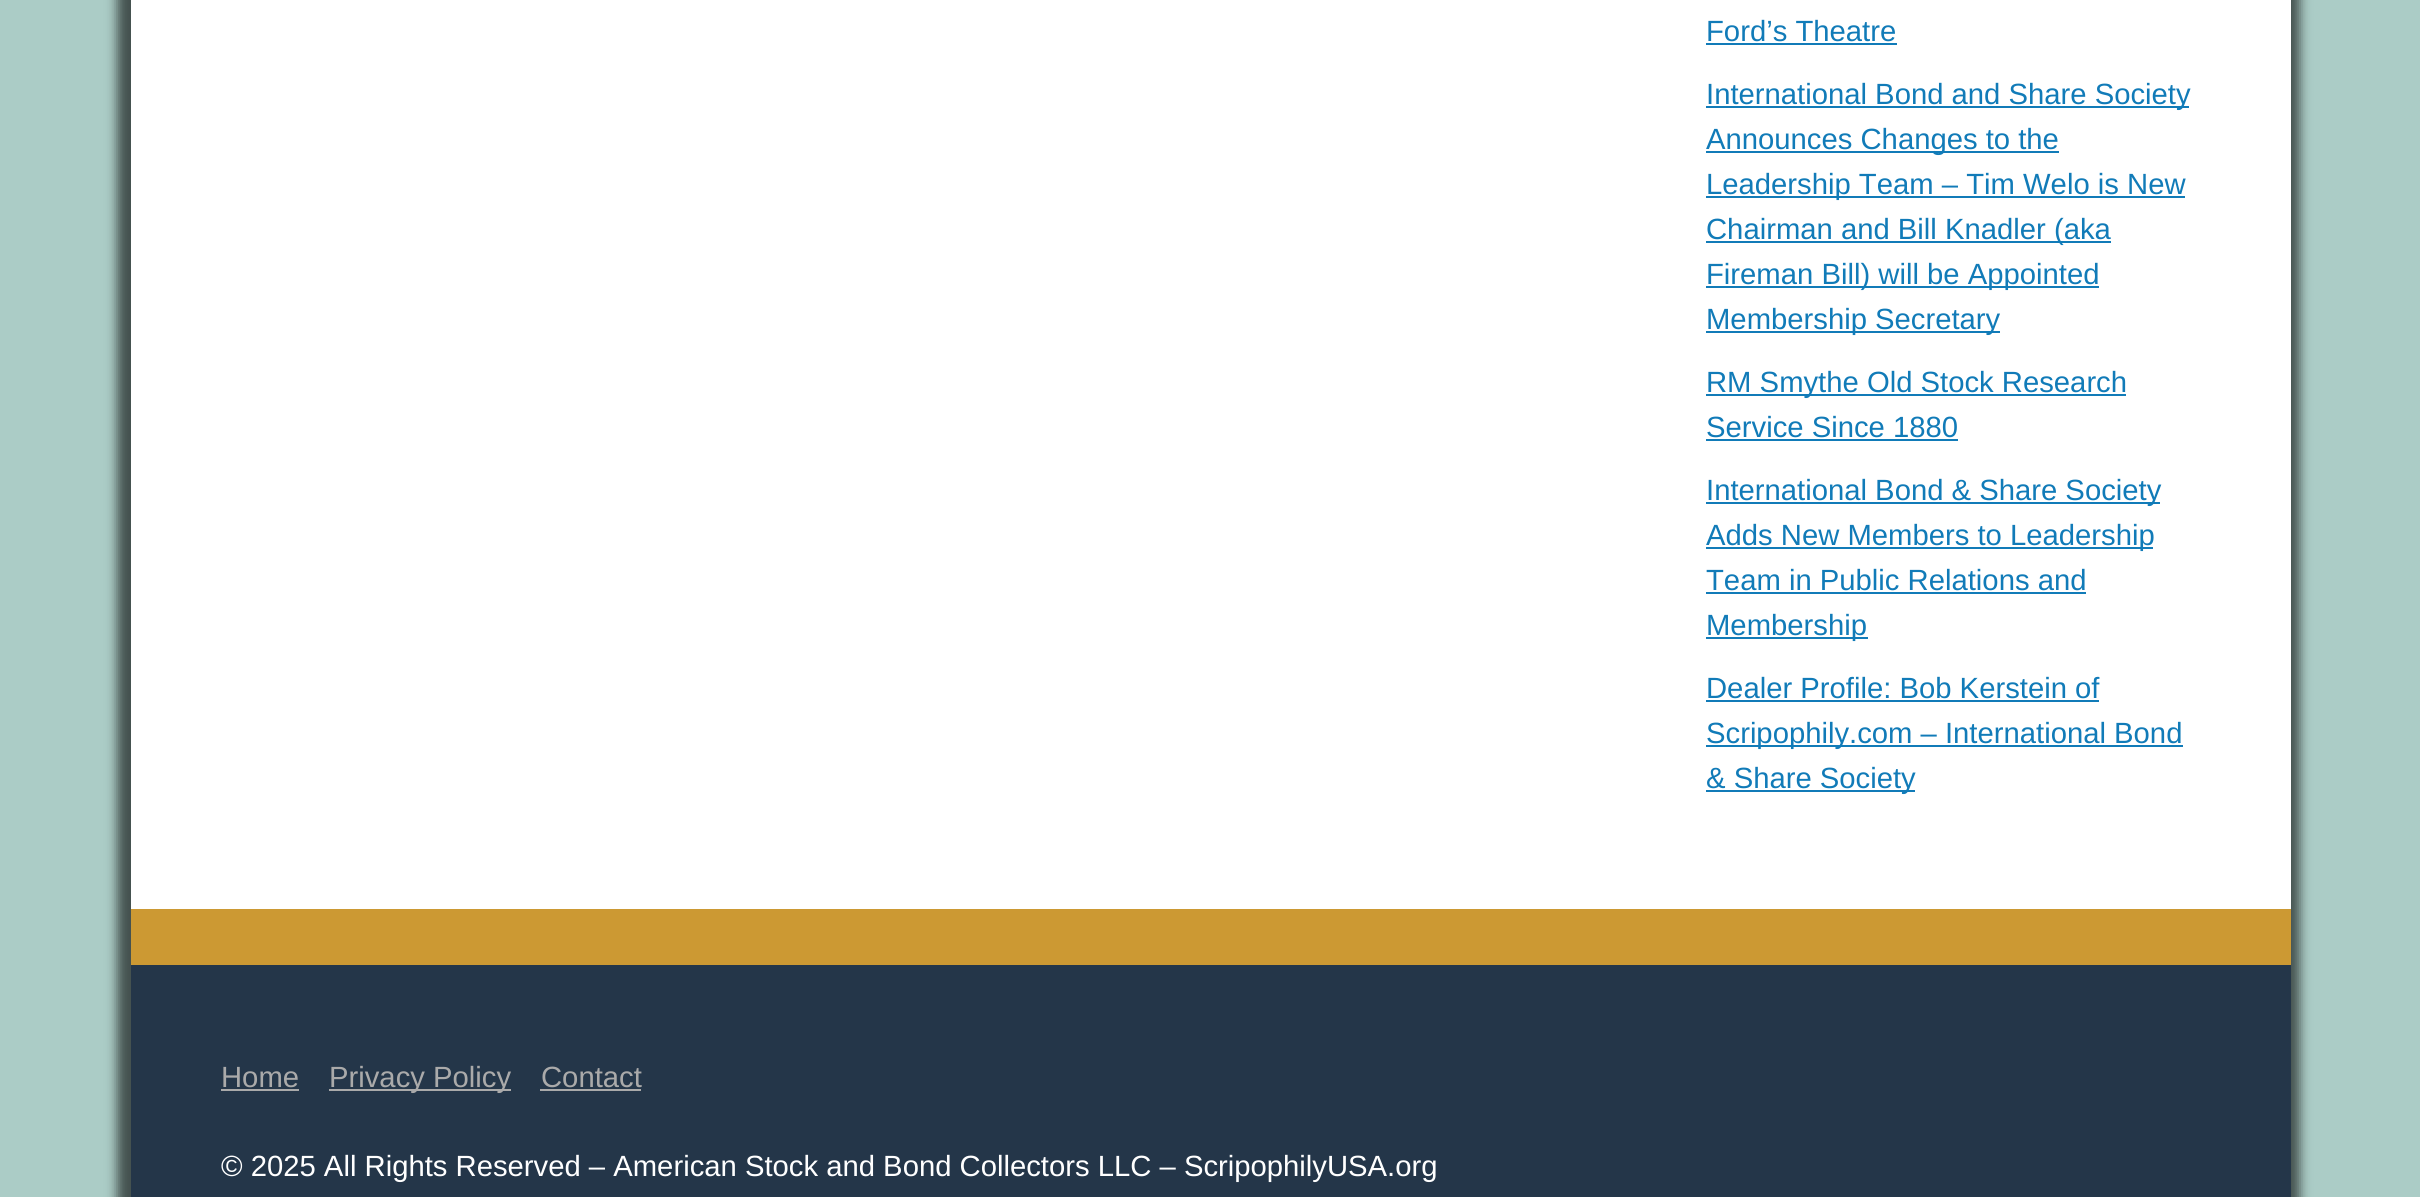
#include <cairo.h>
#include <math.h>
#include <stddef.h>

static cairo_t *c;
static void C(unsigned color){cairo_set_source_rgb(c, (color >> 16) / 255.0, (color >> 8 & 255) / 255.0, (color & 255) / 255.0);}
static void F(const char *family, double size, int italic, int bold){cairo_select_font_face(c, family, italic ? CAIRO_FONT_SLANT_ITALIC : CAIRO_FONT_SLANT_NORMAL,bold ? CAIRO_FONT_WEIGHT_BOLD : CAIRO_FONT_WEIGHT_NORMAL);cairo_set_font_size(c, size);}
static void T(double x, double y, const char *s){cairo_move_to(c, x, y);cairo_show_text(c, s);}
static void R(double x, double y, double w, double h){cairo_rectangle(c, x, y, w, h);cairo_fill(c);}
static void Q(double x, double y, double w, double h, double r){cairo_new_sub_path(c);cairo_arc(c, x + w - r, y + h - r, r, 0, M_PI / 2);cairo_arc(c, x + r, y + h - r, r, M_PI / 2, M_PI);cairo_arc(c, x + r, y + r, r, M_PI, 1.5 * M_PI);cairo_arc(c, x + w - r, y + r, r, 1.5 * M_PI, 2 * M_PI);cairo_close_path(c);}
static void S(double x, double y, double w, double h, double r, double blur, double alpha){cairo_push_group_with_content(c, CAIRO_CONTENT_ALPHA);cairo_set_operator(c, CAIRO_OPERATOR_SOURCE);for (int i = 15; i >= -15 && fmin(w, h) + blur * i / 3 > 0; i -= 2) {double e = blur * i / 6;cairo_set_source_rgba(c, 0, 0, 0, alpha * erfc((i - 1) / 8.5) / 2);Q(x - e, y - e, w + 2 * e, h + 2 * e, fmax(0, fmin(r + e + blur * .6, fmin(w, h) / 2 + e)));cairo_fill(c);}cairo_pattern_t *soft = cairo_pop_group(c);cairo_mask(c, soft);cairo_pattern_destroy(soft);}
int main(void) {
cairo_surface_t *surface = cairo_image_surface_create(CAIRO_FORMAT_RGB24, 2420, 1197);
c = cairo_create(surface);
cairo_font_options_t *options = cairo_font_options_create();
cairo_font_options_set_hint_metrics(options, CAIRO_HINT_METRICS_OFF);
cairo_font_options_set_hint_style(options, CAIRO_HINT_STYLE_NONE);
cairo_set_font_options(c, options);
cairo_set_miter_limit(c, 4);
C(0xabccc6);
cairo_paint(c);
C(0x000000);
S(117,-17,2183,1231,0,5.5,.6);
C(0xffffff);
R(131,0,2160,909);
C(0xcc9933);
R(131,909,2160,56);
F("Liberation Sans",29.25,0,0);
C(0x117bb8);
T(1706,41,"Ford’s Theatre");
R(1706,43,191,2);
R(1706,106,483,2);
T(1706,104,"International Bond and Share Society");
R(1706,151,353,2);
T(1706,149,"Announces Changes to the");
R(1706,196,479,2);
T(1706,194,"Leadership Team – Tim Welo is New");
R(1706,241,405,2);
T(1706,239,"Chairman and Bill Knadler (aka");
R(1706,286,393,2);
T(1706,284,"Fireman Bill) will be Appointed");
R(1706,331,294,2);
T(1706,329,"Membership Secretary");
R(1706,394,420,2);
T(1706,392,"RM Smythe Old Stock Research");
T(1706,437,"Service Since 1880");
R(1706,439,252,2);
R(1706,502,454,2);
T(1706,500,"International Bond & Share Society");
R(1706,547,447,2);
T(1706,545,"Adds New Members to Leadership");
T(1706,590,"Team in Public Relations and");
R(1706,592,380,2);
R(1706,637,162,2);
T(1706,635,"Membership");
T(1706,698,"Dealer Profile: Bob Kerstein of");
R(1706,700,393,2);
R(1706,745,477,2);
T(1706,743,"Scripophily.com – International Bond");
R(1706,790,209,2);
T(1706,788,"& Share Society");
C(0x243649);
R(131,965,2160,232);
C(0xaaaaaa);
T(221,1087,"Home");
R(221,1089,78,2);
R(329,1089,182,2);
T(329,1087,"Privacy Policy");
T(541,1087,"Contact");
R(540,1089,101,2);
C(0xffffff);
T(221,1176,"© 2025 All Rights Reserved – American Stock and Bond Collectors LLC – ScripophilyUSA.org");
cairo_surface_write_to_png(surface, "o.png");
cairo_font_options_destroy(options);
cairo_destroy(c);
cairo_surface_destroy(surface);
return 0;
}
